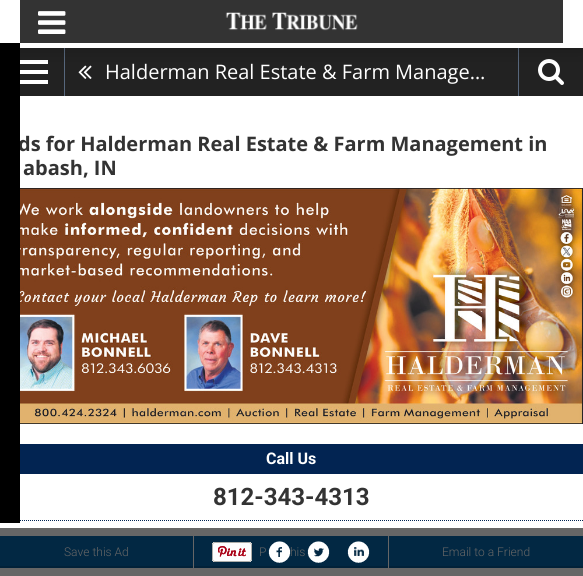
#include <cairo.h>
#include <math.h>
#include <stddef.h>

static cairo_t *c;
static void C(unsigned color){cairo_set_source_rgb(c, (color >> 16) / 255.0, (color >> 8 & 255) / 255.0, (color & 255) / 255.0);}
static void F(const char *family, double size, int italic, int bold){cairo_select_font_face(c, family, italic ? CAIRO_FONT_SLANT_ITALIC : CAIRO_FONT_SLANT_NORMAL,bold ? CAIRO_FONT_WEIGHT_BOLD : CAIRO_FONT_WEIGHT_NORMAL);cairo_set_font_size(c, size);}
static void T(double x, double y, const char *s){cairo_move_to(c, x, y);cairo_show_text(c, s);}
static void R(double x, double y, double w, double h){cairo_rectangle(c, x, y, w, h);cairo_fill(c);}
static void Q(double x, double y, double w, double h, double r){cairo_new_sub_path(c);cairo_arc(c, x + w - r, y + h - r, r, 0, M_PI / 2);cairo_arc(c, x + r, y + h - r, r, M_PI / 2, M_PI);cairo_arc(c, x + r, y + r, r, M_PI, 1.5 * M_PI);cairo_arc(c, x + w - r, y + r, r, 1.5 * M_PI, 2 * M_PI);cairo_close_path(c);}
static void S(double x, double y, double w, double h, double r, double blur, double alpha){cairo_push_group_with_content(c, CAIRO_CONTENT_ALPHA);cairo_set_operator(c, CAIRO_OPERATOR_SOURCE);for (int i = 15; i >= -15 && fmin(w, h) + blur * i / 3 > 0; i -= 2) {double e = blur * i / 6;cairo_set_source_rgba(c, 0, 0, 0, alpha * erfc((i - 1) / 8.5) / 2);Q(x - e, y - e, w + 2 * e, h + 2 * e, fmax(0, fmin(r + e + blur * .6, fmin(w, h) / 2 + e)));cairo_fill(c);}cairo_pattern_t *soft = cairo_pop_group(c);cairo_mask(c, soft);cairo_pattern_destroy(soft);}
static void I(const char *path, double x, double y, double w, double h){cairo_surface_t *image = cairo_image_surface_create_from_png(path);cairo_save(c);cairo_set_source_surface(c, image, x, y);cairo_rectangle(c, x, y, w, h);cairo_fill(c);cairo_restore(c);cairo_surface_destroy(image);}
int main(void) {
cairo_surface_t *surface = cairo_image_surface_create(CAIRO_FORMAT_RGB24, 583, 576);
c = cairo_create(surface);
cairo_font_options_t *options = cairo_font_options_create();
cairo_font_options_set_hint_metrics(options, CAIRO_HINT_METRICS_OFF);
cairo_font_options_set_hint_style(options, CAIRO_HINT_STYLE_NONE);
cairo_set_font_options(c, options);
cairo_set_miter_limit(c, 4);
C(0xffffff);
cairo_paint(c);
C(0x666666);
R(0,528,583,48);
C(0x222222);
R(20,48,563,48);
C(0xffffff);
R(16,60,32,4);
R(16,70,32,4);
C(0x57677c);
R(518,48,1,48);
R(64,48,1,48);
I("3.png",78,65,14,14);
I("4.png",538,59,26,26);
cairo_save(c);
cairo_rectangle(c,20,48,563,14);
cairo_clip(c);
C(0x000000);
S(0,0,583,48,0,10,.25);
cairo_restore(c);
C(0x333333);
R(20,0,543,43);
I("1.png",225,12,133,19);
I("2.png",38,11,28,23);
C(0xffffff);
R(16,80,32,4);
F("Open Sans",20,0,1);
C(0x333333);
T(18,151,"ds for Halderman Real Estate & Farm Management in");
cairo_new_path(c);
cairo_move_to(c,0,520.5);
cairo_line_to(c,583,520.5);
C(0x022452);
cairo_set_line_width(c,1);
cairo_set_dash(c,(double[]){1,1},2,0);
cairo_stroke(c);
C(0x000000);
R(0,43,20,480);
F("Open Sans",20,0,0);
C(0xffffff);
T(105,79,"Halderman Real Estate & Farm Manage…");
F("Open Sans",20,0,1);
C(0x333333);
T(23,175,"abash, IN");
I("5.png",20,188,563,236);
C(0x022452);
R(20,444,563,30);
F("Roboto",16,0,1);
C(0xffffff);
T(266,464,"Call Us");
F("Roboto",24,0,1);
C(0x333333);
T(213,505,"812-343-4313");
C(0x022843);
R(0,536,193,30);
C(0x022239);
R(0,566,193,2);
F("Roboto Light",12,0,0);
C(0x666666);
T(64,556,"Save this Ad");
C(0x022843);
R(194,536,194,30);
C(0x022239);
R(194,566,194,2);
C(0x666666);
T(259,556,"P");
T(290,556,"his");
C(0x022843);
R(389,536,194,30);
C(0x022239);
R(389,566,194,2);
C(0x666666);
T(442,556,"Email to a Friend");
I("6.png",212,542,40,20);
I("7.png",268,541,23,22);
I("8.png",307,541,23,22);
I("9.png",347,541,23,22);
cairo_surface_write_to_png(surface, "o.png");
cairo_font_options_destroy(options);
cairo_destroy(c);
cairo_surface_destroy(surface);
return 0;
}
